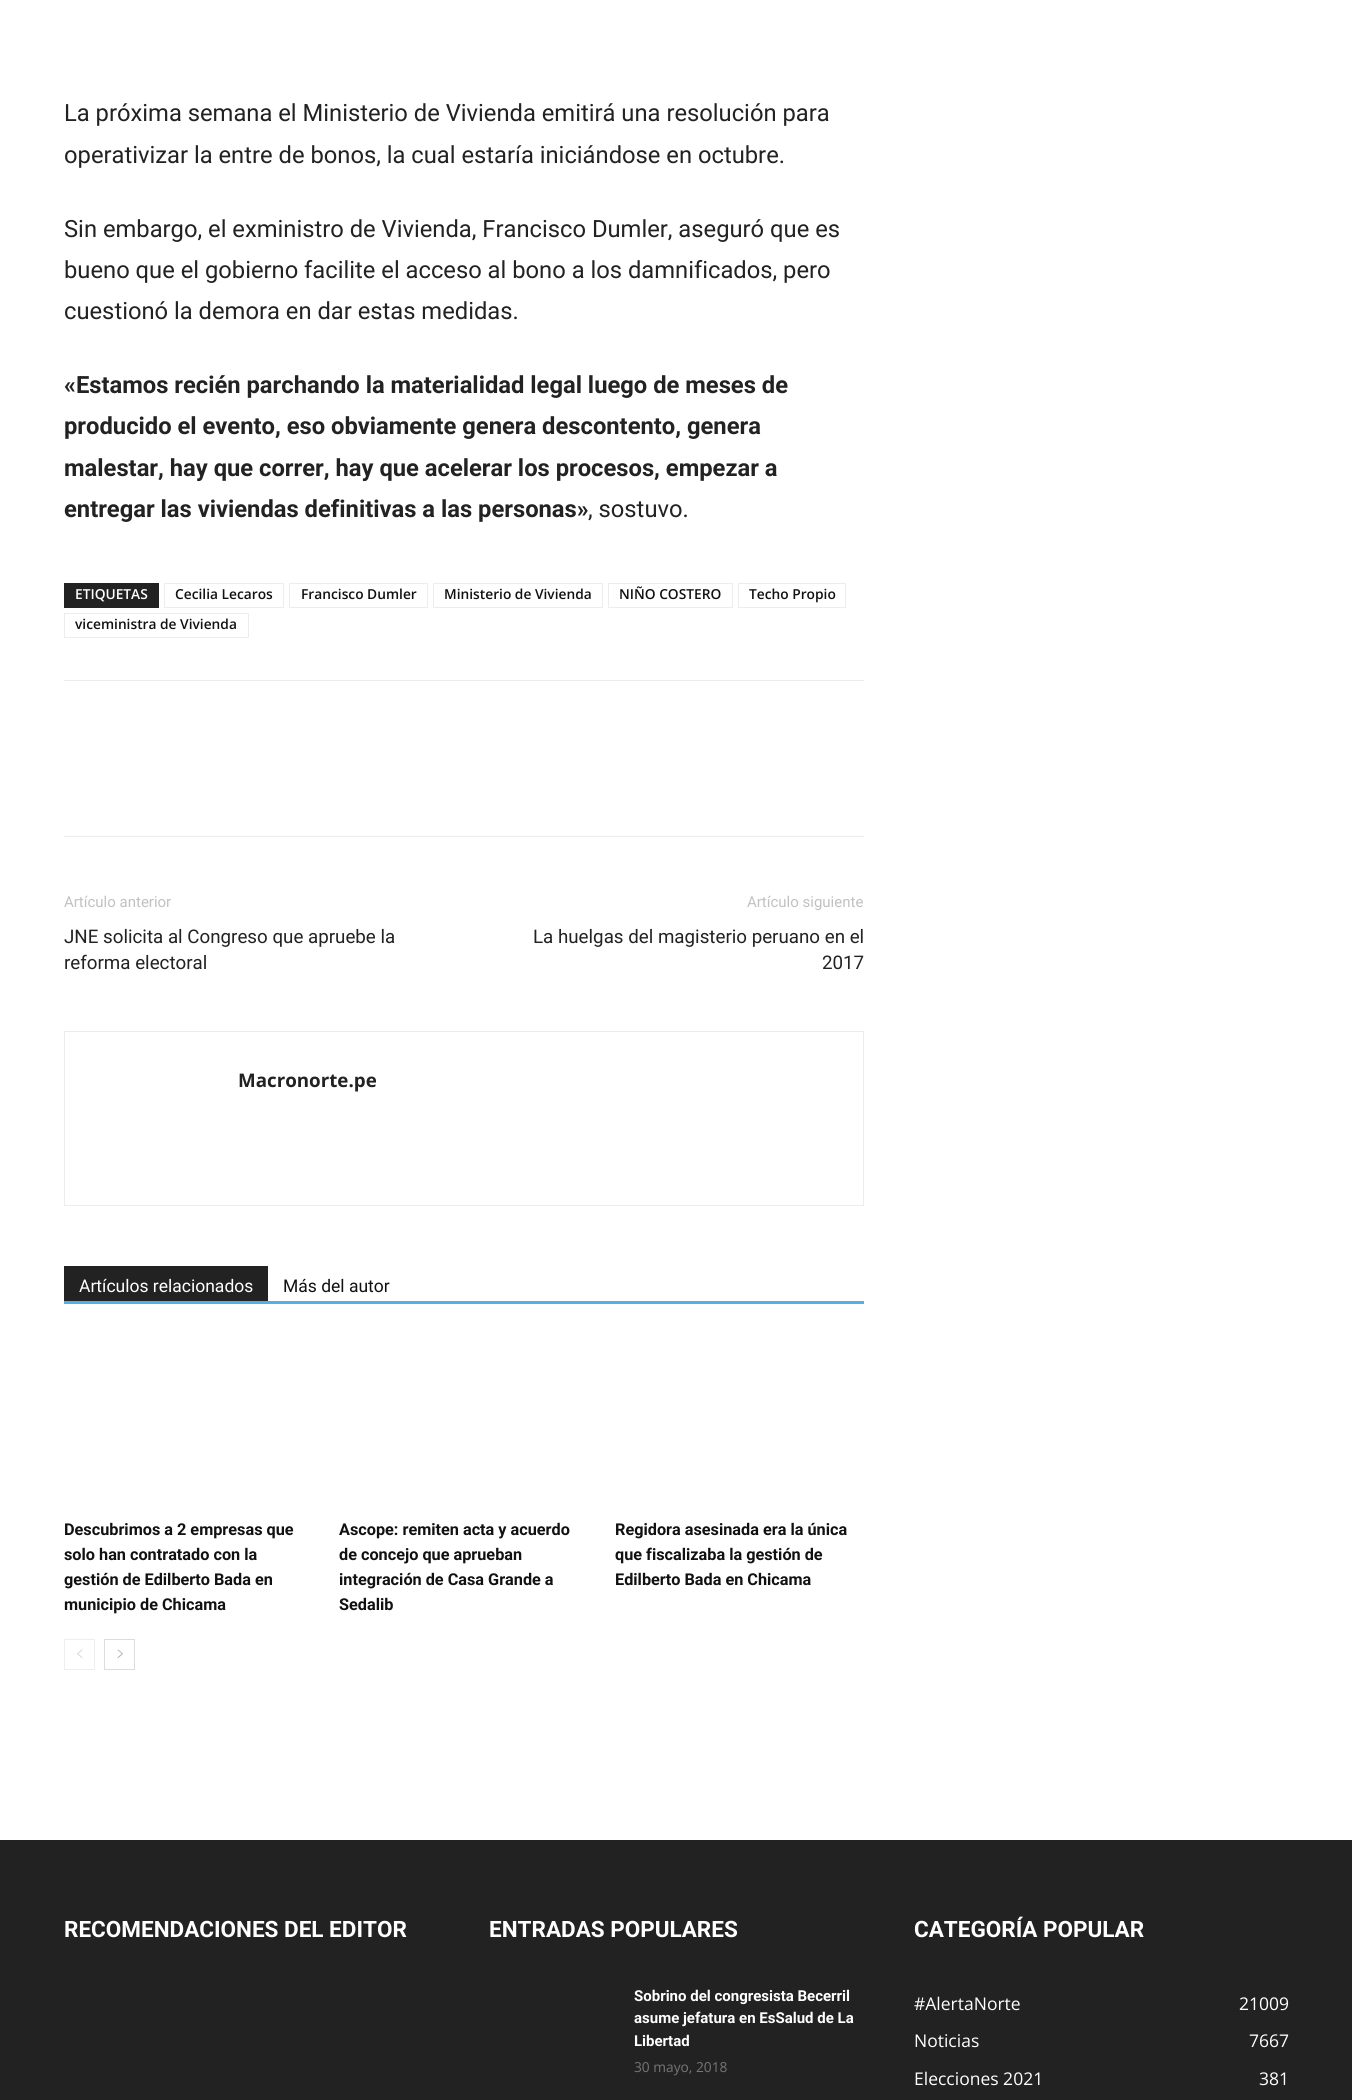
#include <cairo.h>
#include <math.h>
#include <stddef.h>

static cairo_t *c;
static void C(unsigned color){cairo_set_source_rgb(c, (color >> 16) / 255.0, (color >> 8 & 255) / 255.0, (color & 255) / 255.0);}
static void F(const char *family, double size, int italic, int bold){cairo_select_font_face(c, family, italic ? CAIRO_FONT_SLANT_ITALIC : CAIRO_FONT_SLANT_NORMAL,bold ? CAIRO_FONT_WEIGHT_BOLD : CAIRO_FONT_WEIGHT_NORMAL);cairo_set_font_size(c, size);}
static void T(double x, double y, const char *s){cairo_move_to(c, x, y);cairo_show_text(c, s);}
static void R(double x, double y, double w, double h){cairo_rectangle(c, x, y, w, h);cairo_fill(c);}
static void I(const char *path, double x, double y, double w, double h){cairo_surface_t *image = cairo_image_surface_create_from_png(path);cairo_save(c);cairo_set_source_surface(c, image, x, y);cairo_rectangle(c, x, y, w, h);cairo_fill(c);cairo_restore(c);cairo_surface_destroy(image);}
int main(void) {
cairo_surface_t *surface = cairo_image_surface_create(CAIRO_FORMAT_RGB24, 1352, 2100);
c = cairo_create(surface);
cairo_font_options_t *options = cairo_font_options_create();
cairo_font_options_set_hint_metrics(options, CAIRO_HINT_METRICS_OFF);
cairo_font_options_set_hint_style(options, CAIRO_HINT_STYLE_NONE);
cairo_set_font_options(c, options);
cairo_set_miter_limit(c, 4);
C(0xffffff);
cairo_paint(c);
F("Roboto",23.75,0,0);
C(0x222222);
T(64,121,"La próxima semana el Ministerio de Vivienda emitirá una resolución para");
T(64,163,"operativizar la entre de bonos, la cual estaría iniciándose en octubre.");
T(64,237,"Sin embargo, el exministro de Vivienda, Francisco Dumler, aseguró que es");
T(64,278,"bueno que el gobierno facilite el acceso al bono a los damnificados, pero");
T(64,319,"cuestionó la demora en dar estas medidas.");
F("Roboto",23.75,0,1);
T(64,393,"«Estamos recién parchando la materialidad legal luego de meses de");
T(64,434,"producido el evento, eso obviamente genera descontento, genera");
T(64,476,"malestar, hay que correr, hay que acelerar los procesos, empezar a");
T(64,517,"entregar las viviendas definitivas a las personas»");
F("Roboto",23.75,0,0);
T(588,517,", sostuvo.");
R(64,583,95,25);
F("Open Sans SemiBold",13.75,0,0);
C(0xffffff);
T(75,599,"ETIQUETAS");
cairo_rectangle(c,164.5,583.5,119,24);
C(0xededed);
cairo_set_line_width(c,1);
cairo_stroke(c);
C(0x111111);
T(175,599,"Cecilia Lecaros");
cairo_rectangle(c,289.5,583.5,138,24);
C(0xededed);
cairo_stroke(c);
C(0x111111);
T(301,599,"Francisco Dumler");
cairo_rectangle(c,433.5,583.5,169,24);
C(0xededed);
cairo_stroke(c);
C(0x111111);
T(444,599,"Ministerio de Vivienda");
cairo_rectangle(c,608.5,583.5,124,24);
C(0xededed);
cairo_stroke(c);
C(0x111111);
T(619,599,"NIÑO COSTERO");
cairo_rectangle(c,738.5,583.5,107,24);
C(0xededed);
cairo_stroke(c);
C(0x111111);
T(749,599,"Techo Propio");
cairo_rectangle(c,64.5,613.5,184,24);
C(0xededed);
cairo_stroke(c);
C(0x111111);
T(75,629,"viceministra de Vivienda");
C(0xededed);
R(64,680,800,1);
R(64,836,800,1);
F("Roboto",15,0,0);
C(0xc1c1c1);
T(64,907,"Artículo anterior");
F("Roboto",18.75,0,0);
C(0x222222);
T(64,943,"JNE solicita al Congreso que apruebe la");
T(64,969,"reforma electoral");
F("Roboto",15,0,0);
C(0xc1c1c1);
T(747,907,"Artículo siguiente");
F("Roboto",18.75,0,0);
C(0x222222);
T(533,943,"La huelgas del magisterio peruano en el");
T(822,969,"2017");
cairo_rectangle(c,64.5,1031.5,799,174);
C(0xededed);
cairo_stroke(c);
F("Open Sans",18.75,0,1);
C(0x222222);
T(238,1087,"Macronorte.pe");
C(0x4db2ec);
R(64,1301,800,3);
C(0x222222);
R(64,1266,204,35);
F("Roboto",17.5,0,0);
C(0xffffff);
T(79,1292,"Artículos relacionados");
C(0x111111);
T(283,1292,"Más del autor");
F("Roboto",16.25,0,1);
T(64,1535,"Descubrimos a 2 empresas que");
T(64,1560,"solo han contratado con la");
T(64,1585,"gestión de Edilberto Bada en");
T(64,1610,"municipio de Chicama");
T(339,1535,"Ascope: remiten acta y acuerdo");
T(339,1560,"de concejo que aprueban");
T(339,1585,"integración de Casa Grande a");
T(339,1610,"Sedalib");
T(615,1535,"Regidora asesinada era la única");
T(615,1560,"que fiscalizaba la gestión de");
T(615,1585,"Edilberto Bada en Chicama");
cairo_rectangle(c,64.5,1639.5,30,30);
C(0xeeeeee);
cairo_stroke(c);
I("1.png",77,1649,6,9);
cairo_rectangle(c,104.5,1639.5,30,30);
C(0xdcdcdc);
cairo_stroke(c);
I("2.png",117,1649,6,9);
C(0x222222);
R(0,1840,1352,260);
F("Roboto",22.5,0,1);
C(0xffffff);
T(64,1937,"RECOMENDACIONES DEL EDITOR");
T(489,1937,"ENTRADAS POPULARES");
F("Roboto",15,0,1);
T(634,2001,"Sobrino del congresista Becerril");
T(634,2023,"asume jefatura en EsSalud de La");
T(634,2046,"Libertad");
F("Open Sans",13.75,0,0);
C(0x767676);
T(634,2072,"30 mayo, 2018");
F("Roboto",22.5,0,1);
C(0xffffff);
T(914,1937,"CATEGORÍA POPULAR");
F("Open Sans",17.5,0,0);
T(914,2010,"#AlertaNorte");
T(1239,2010,"21009");
T(914,2047,"Noticias");
T(1249,2047,"7667");
T(914,2085,"Elecciones 2021");
T(1259,2085,"381");
cairo_surface_write_to_png(surface, "o.png");
cairo_font_options_destroy(options);
cairo_destroy(c);
cairo_surface_destroy(surface);
return 0;
}
